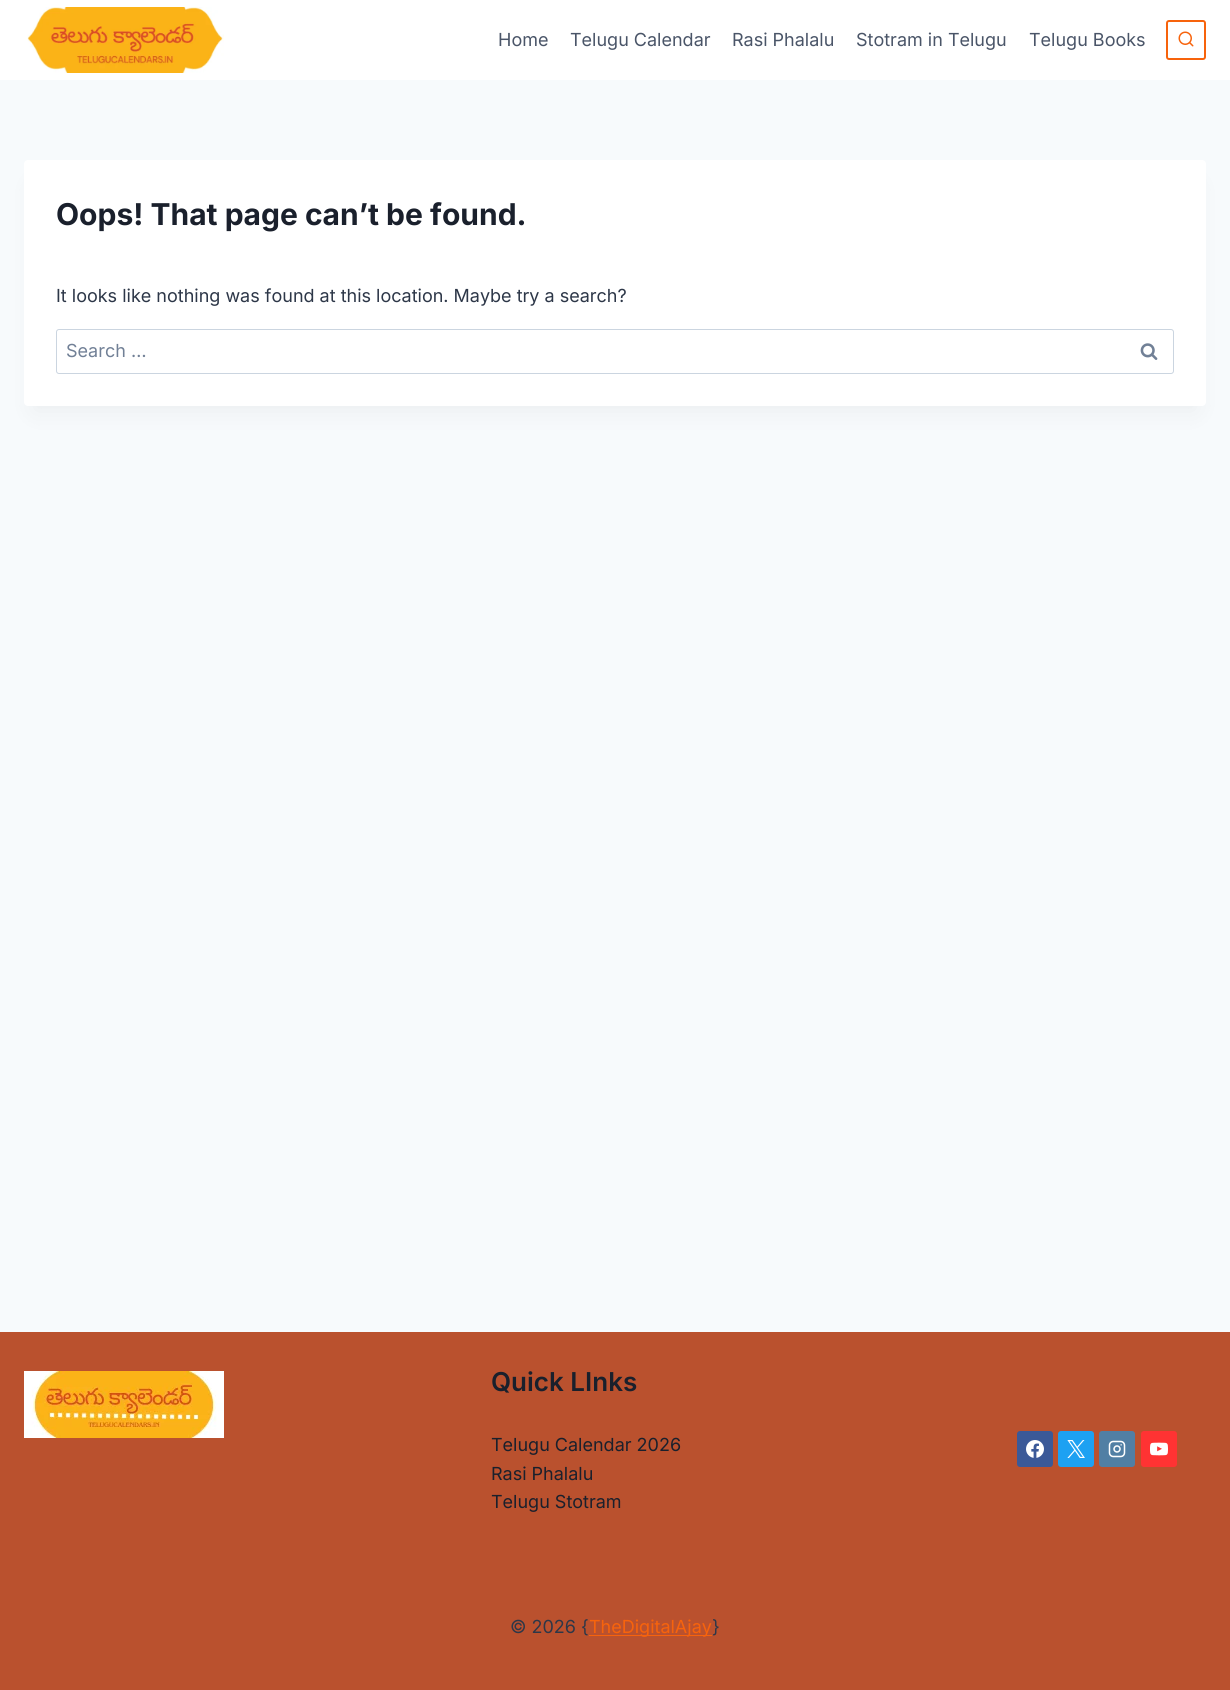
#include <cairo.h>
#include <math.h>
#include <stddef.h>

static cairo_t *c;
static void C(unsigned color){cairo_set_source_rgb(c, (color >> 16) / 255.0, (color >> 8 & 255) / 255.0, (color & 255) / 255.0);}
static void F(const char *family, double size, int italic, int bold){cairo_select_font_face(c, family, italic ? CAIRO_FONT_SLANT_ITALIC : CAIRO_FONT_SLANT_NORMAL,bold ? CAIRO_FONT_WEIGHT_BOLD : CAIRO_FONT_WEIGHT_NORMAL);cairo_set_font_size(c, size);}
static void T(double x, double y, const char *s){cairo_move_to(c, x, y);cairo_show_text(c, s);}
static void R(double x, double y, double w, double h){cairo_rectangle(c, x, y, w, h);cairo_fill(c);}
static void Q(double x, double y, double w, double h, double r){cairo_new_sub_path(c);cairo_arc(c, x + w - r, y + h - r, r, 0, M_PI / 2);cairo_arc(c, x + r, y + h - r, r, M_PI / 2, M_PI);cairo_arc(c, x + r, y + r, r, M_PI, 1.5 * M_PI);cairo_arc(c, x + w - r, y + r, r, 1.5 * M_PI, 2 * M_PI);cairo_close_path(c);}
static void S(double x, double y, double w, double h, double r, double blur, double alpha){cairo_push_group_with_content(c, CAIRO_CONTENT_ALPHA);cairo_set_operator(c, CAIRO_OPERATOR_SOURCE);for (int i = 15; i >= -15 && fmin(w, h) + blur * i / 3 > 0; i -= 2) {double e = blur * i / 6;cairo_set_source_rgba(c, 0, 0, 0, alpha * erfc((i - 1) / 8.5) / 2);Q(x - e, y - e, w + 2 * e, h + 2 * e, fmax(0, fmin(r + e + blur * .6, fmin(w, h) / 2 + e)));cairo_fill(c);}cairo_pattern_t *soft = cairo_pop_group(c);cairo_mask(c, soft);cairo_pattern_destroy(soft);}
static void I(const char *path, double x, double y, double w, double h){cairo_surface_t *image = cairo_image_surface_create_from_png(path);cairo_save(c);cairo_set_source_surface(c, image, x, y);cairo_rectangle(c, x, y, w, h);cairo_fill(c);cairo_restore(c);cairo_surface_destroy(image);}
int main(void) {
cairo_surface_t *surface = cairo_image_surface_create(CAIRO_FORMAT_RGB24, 1230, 1690);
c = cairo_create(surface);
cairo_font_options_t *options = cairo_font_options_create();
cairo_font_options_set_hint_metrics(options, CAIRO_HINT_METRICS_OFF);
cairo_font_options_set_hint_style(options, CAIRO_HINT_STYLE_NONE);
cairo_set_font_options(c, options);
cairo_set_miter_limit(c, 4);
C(0xf7fafc);
cairo_paint(c);
C(0xffffff);
R(0,0,1230,80);
I("1.png",27,7,197,66);
F("Inter",18,0,0);
C(0x4a5568);
T(498,46,"Home");
T(570,46,"Telugu Calendar");
T(732,46,"Rasi Phalalu");
T(856,46,"Stotram in Telugu");
T(1029,46,"Telugu Books");
Q(1167,21,38,38,2);
C(0xf7630c);
cairo_stroke(c);
I("2.png",1178,31,16,16);
C(0x000000);
S(34,185,1162,226,0,12.5,.05);
C(0xffffff);
Q(24,160,1182,246,4);
cairo_fill(c);
F("Inter",30,0,1);
C(0x1a202c);
T(56,225,"Oops! That page can’t be found.");
F("Inter",18,0,0);
C(0x2d3748);
T(56,302,"It looks like nothing was found at this location. Maybe try a search?");
Q(56.5,329.5,1117,44,2.5);
C(0xcbd5e0);
cairo_set_line_width(c,1);
cairo_stroke(c);
C(0x718096);
T(66,357,"Search …");
I("3.png",1140,343,18,17);
C(0xba512e);
R(0,1332,1230,358);
I("4.png",24,1371,200,67);
F("Inter SemiBold",26,0,0);
C(0x1a202c);
T(491,1391,"Quick LInks");
F("Inter",18,0,0);
T(491,1451,"Telugu Calendar 2026");
T(491,1480,"Rasi Phalalu");
T(491,1508,"Telugu Stotram");
C(0x3b5998);
Q(1017,1431,36,36,3);
cairo_fill(c);
I("5.png",1026,1440,18,18);
C(0x1da1f2);
Q(1058,1431,36,36,3);
cairo_fill(c);
I("6.png",1067,1440,18,18);
C(0x517fa4);
Q(1099,1431,36,36,3);
cairo_fill(c);
I("7.png",1108,1440,18,18);
C(0xff3333);
Q(1141,1431,36,36,3);
cairo_fill(c);
I("8.png",1150,1442,18,14);
C(0x2d3748);
T(510,1633,"© 2026 {");
C(0xf7630c);
R(589,1635,123,1);
T(589,1633,"TheDigitalAjay");
C(0x2d3748);
T(712,1633,"}");
cairo_surface_write_to_png(surface, "o.png");
cairo_font_options_destroy(options);
cairo_destroy(c);
cairo_surface_destroy(surface);
return 0;
}
